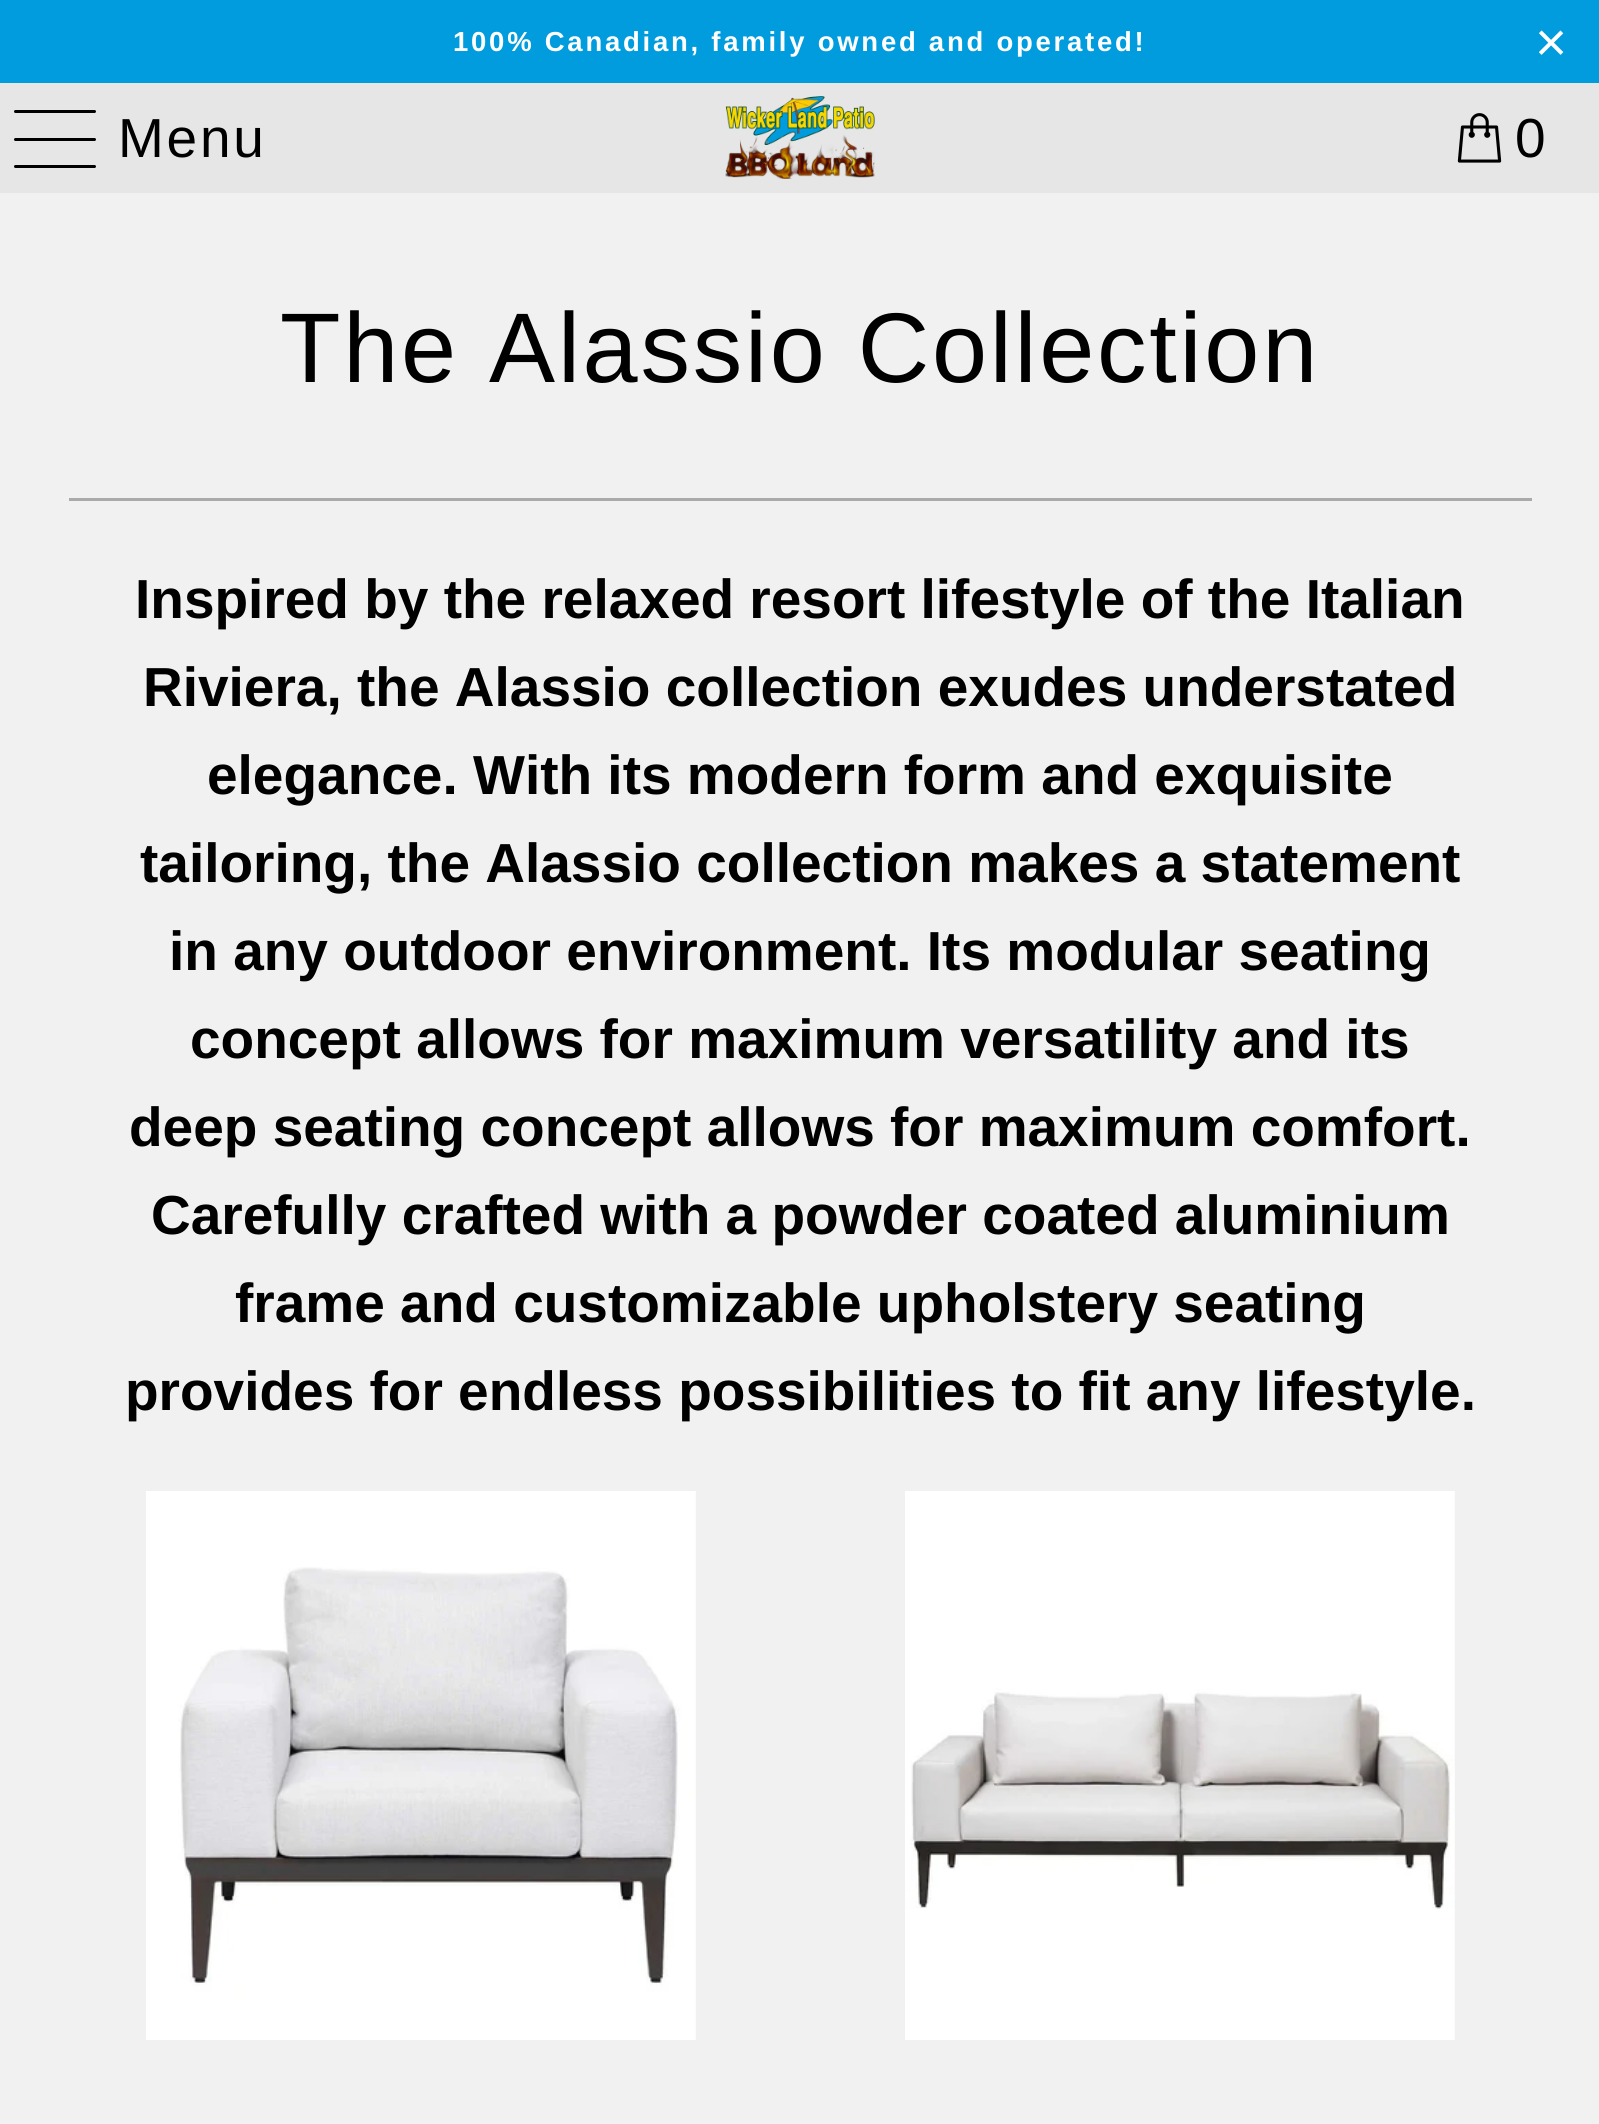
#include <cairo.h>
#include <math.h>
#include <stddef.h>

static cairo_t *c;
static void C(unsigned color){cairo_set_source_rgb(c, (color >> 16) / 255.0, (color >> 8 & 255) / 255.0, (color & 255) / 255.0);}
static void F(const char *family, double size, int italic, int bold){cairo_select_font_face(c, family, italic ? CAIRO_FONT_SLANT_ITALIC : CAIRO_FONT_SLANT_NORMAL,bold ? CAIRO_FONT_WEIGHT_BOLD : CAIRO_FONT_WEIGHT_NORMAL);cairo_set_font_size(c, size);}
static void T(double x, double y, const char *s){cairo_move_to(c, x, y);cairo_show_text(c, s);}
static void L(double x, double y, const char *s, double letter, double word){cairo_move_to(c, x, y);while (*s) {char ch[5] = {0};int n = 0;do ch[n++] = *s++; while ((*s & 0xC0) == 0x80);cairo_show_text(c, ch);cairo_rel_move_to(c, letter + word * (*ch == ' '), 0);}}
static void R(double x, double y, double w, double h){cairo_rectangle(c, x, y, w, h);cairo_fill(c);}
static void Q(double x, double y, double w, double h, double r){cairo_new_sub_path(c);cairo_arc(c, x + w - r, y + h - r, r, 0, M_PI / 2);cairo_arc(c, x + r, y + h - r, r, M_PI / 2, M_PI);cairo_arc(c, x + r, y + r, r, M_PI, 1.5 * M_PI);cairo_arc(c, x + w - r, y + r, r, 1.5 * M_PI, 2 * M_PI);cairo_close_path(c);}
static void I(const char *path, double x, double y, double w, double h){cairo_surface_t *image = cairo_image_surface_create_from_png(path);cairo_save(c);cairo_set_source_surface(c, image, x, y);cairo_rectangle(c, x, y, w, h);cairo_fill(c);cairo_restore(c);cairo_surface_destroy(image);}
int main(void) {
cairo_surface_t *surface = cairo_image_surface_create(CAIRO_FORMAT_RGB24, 1599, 2124);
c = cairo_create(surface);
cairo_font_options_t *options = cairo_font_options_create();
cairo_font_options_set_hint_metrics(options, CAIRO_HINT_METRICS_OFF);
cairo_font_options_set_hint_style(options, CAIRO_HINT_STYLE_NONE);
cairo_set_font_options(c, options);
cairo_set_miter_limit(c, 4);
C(0xf1f1f1);
cairo_paint(c);
C(0x009cdd);
R(0,0,1599,83);
F("Liberation Sans",27.5,0,1);
C(0xffffff);
L(453,51,"100% Canadian, family owned and operated!",2.75,0);
F("Liberation Sans",55,0,0);
L(1535,61,"×",2.75,0);
C(0xe6e6e6);
R(0,83,1599,110);
C(0x000000);
Q(14,110,82,3,1.5);
cairo_fill(c);
Q(14,138,82,3,1.5);
cairo_fill(c);
Q(14,165,82,3,1.5);
cairo_fill(c);
L(118,157,"Menu",2.75,0);
I("1.png",725,96,150,83);
I("2.png",1457,113,45,50);
L(1515,157,"0",2.75,0);
F("Liberation Sans",99,0,0);
L(280,382,"The Alassio Collection",2.75,0);
C(0xaaaaaa);
R(69,498,1463,3);
F("Liberation Sans",55,0,1);
C(0x000000);
T(135,618,"Inspired by the relaxed resort lifestyle of the Italian");
T(143,706,"Riviera, the Alassio collection exudes understated");
T(207,794,"elegance. With its modern form and exquisite");
T(140,882,"tailoring, the Alassio collection makes a statement");
T(169,970,"in any outdoor environment. Its modular seating");
T(190,1058,"concept allows for maximum versatility and its");
T(129,1146,"deep seating concept allows for maximum comfort.");
T(151,1234,"Carefully crafted with a powder coated aluminium");
T(235,1322,"frame and customizable upholstery seating");
T(125,1410,"provides for endless possibilities to fit any lifestyle.");
I("3.png",146,1491,550,549);
I("4.png",905,1491,550,549);
cairo_surface_write_to_png(surface, "o.png");
cairo_font_options_destroy(options);
cairo_destroy(c);
cairo_surface_destroy(surface);
return 0;
}
